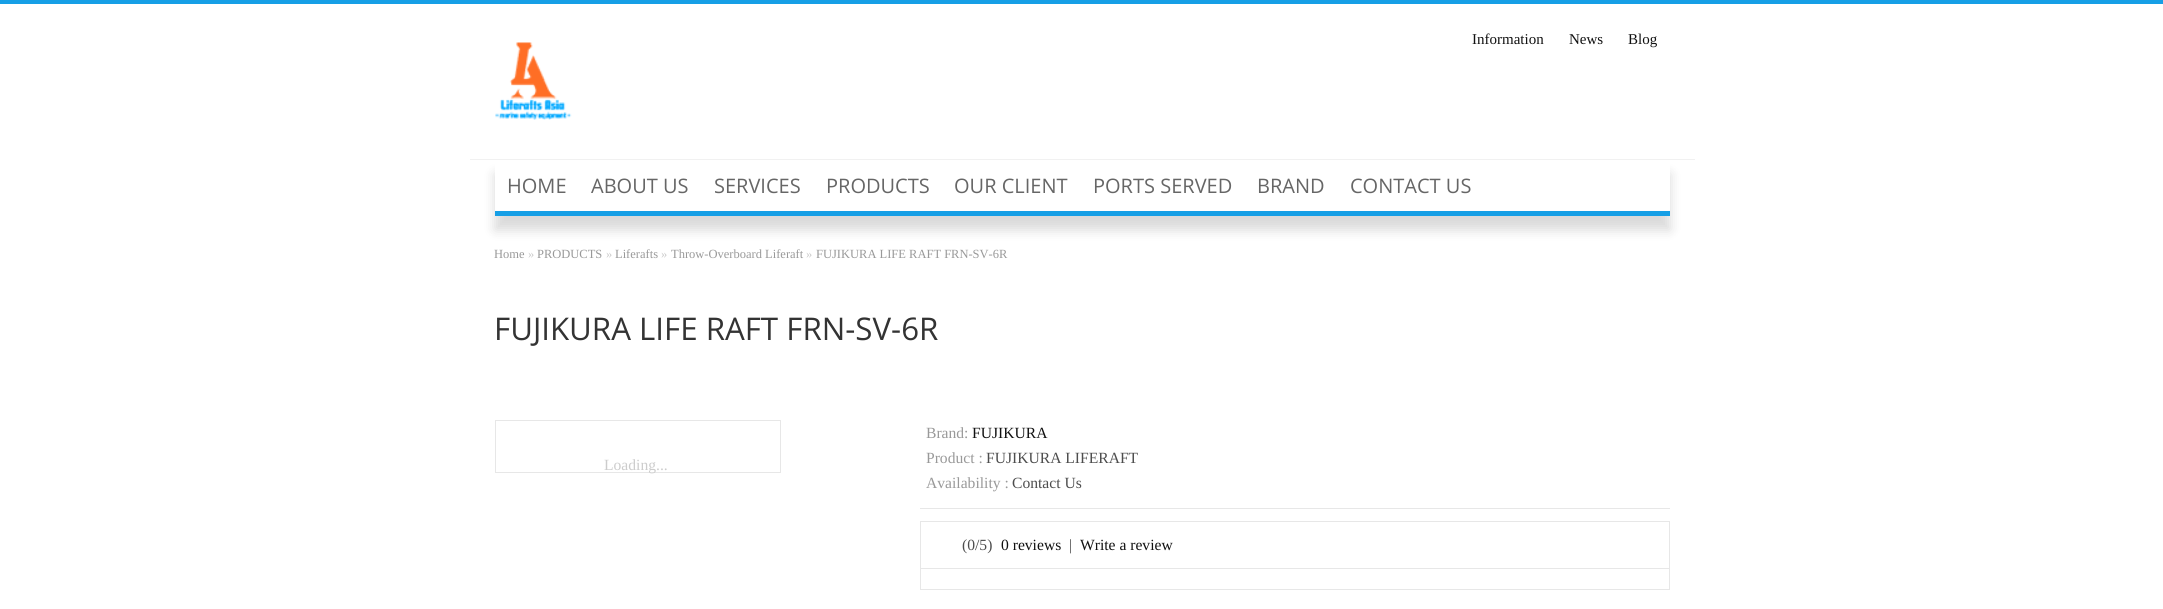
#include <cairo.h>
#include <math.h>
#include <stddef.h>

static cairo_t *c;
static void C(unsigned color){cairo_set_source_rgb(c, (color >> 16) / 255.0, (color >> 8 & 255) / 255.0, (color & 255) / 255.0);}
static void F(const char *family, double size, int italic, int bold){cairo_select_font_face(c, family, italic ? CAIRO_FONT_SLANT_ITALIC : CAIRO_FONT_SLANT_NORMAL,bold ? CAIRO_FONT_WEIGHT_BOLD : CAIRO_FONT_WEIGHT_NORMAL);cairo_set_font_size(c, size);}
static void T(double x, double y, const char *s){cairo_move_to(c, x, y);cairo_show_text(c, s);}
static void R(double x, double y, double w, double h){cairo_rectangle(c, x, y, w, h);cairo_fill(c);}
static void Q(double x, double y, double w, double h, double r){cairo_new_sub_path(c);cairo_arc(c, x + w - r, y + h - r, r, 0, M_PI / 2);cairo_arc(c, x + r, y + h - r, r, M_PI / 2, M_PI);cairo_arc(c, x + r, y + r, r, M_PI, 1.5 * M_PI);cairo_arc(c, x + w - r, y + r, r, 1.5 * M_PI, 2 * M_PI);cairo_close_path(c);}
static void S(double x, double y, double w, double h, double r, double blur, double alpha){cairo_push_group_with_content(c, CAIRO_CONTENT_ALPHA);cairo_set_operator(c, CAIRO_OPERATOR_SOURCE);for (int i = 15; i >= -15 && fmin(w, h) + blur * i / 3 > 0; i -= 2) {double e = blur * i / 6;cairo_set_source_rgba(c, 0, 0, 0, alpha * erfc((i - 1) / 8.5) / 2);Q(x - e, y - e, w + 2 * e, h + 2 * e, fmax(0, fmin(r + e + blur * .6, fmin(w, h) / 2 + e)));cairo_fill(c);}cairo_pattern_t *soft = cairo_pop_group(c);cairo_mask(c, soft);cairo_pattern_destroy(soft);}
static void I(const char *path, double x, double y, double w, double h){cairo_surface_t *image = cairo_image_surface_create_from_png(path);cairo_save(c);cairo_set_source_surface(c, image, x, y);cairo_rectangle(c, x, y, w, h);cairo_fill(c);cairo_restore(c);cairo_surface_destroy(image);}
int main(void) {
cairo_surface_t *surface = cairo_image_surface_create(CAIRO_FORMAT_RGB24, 2163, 609);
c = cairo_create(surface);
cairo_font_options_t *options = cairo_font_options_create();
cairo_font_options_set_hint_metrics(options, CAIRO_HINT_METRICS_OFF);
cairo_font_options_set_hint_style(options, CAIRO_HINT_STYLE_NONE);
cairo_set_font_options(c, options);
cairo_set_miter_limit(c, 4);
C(0xffffff);
cairo_paint(c);
C(0x169fe6);
R(0,0,2163,4);
cairo_save(c);
cairo_set_fill_rule(c,CAIRO_FILL_RULE_EVEN_ODD);
cairo_new_path(c);
cairo_move_to(c,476,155);
cairo_line_to(c,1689,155);
cairo_line_to(c,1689,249);
cairo_line_to(c,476,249);
cairo_close_path(c);
cairo_move_to(c,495,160);
cairo_line_to(c,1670,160);
cairo_line_to(c,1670,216);
cairo_line_to(c,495,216);
cairo_close_path(c);
cairo_clip(c);
C(0x000000);
S(495,174,1175,56,0,6,.15);
cairo_restore(c);
C(0xf1f1f1);
R(470,159,1225,1);
F("Liberation Serif",15,0,0);
C(0x111111);
T(1472,44,"Information");
T(1569,44,"News");
T(1628,44,"Blog");
I("1.png",495,42,77,78);
C(0x169fe6);
R(495,211,1175,5);
F("Open Sans",20,0,0);
C(0x666666);
T(507,193,"HOME");
T(591,193,"ABOUT US");
T(714,193,"SERVICES");
T(826,193,"PRODUCTS");
T(954,193,"OUR CLIENT");
T(1093,193,"PORTS SERVED");
T(1257,193,"BRAND");
T(1350,193,"CONTACT US");
F("Liberation Serif",12.5,0,0);
C(0x999999);
T(494,258,"Home");
C(0xcccccc);
T(528,258,"»");
C(0x999999);
T(537,258,"PRODUCTS");
C(0xcccccc);
T(606,258,"»");
C(0x999999);
T(615,258,"Liferafts");
C(0xcccccc);
T(661,258,"»");
C(0x999999);
T(671,258,"Throw-Overboard Liferaft");
C(0xcccccc);
T(806,258,"»");
C(0x999999);
T(816,258,"FUJIKURA LIFE RAFT FRN-SV-6R");
F("Open Sans",31.25,0,0);
C(0x333333);
T(494,340,"FUJIKURA LIFE RAFT FRN-SV-6R");
cairo_rectangle(c,495.5,420.5,285,52);
C(0xe7e7e7);
cairo_set_line_width(c,1);
cairo_stroke(c);
F("Liberation Serif",15.6,0,0);
C(0xcccccc);
T(604,470,"Loading...");
C(0xe7e7e7);
R(920,508,750,1);
C(0x999999);
T(926,438,"Brand:");
C(0x111111);
T(972,438,"FUJIKURA");
C(0x999999);
T(926,463,"Product :");
C(0x4d4d4d);
T(986,463,"FUJIKURA LIFERAFT");
C(0x999999);
T(926,488,"Availability :");
C(0x4d4d4d);
T(1012,488,"Contact Us");
C(0xe7e7e7);
R(920,521,750,1);
R(1669,521,1,69);
R(920,521,1,69);
R(921,568,748,1);
C(0x4d4d4d);
T(962,550,"(0/5)");
C(0x111111);
T(1001,550,"0 reviews");
C(0x4d4d4d);
T(1069,550,"|");
C(0x111111);
T(1080,550,"Write a review");
C(0xe7e7e7);
R(921,589,748,1);
cairo_surface_write_to_png(surface, "o.png");
cairo_font_options_destroy(options);
cairo_destroy(c);
cairo_surface_destroy(surface);
return 0;
}
